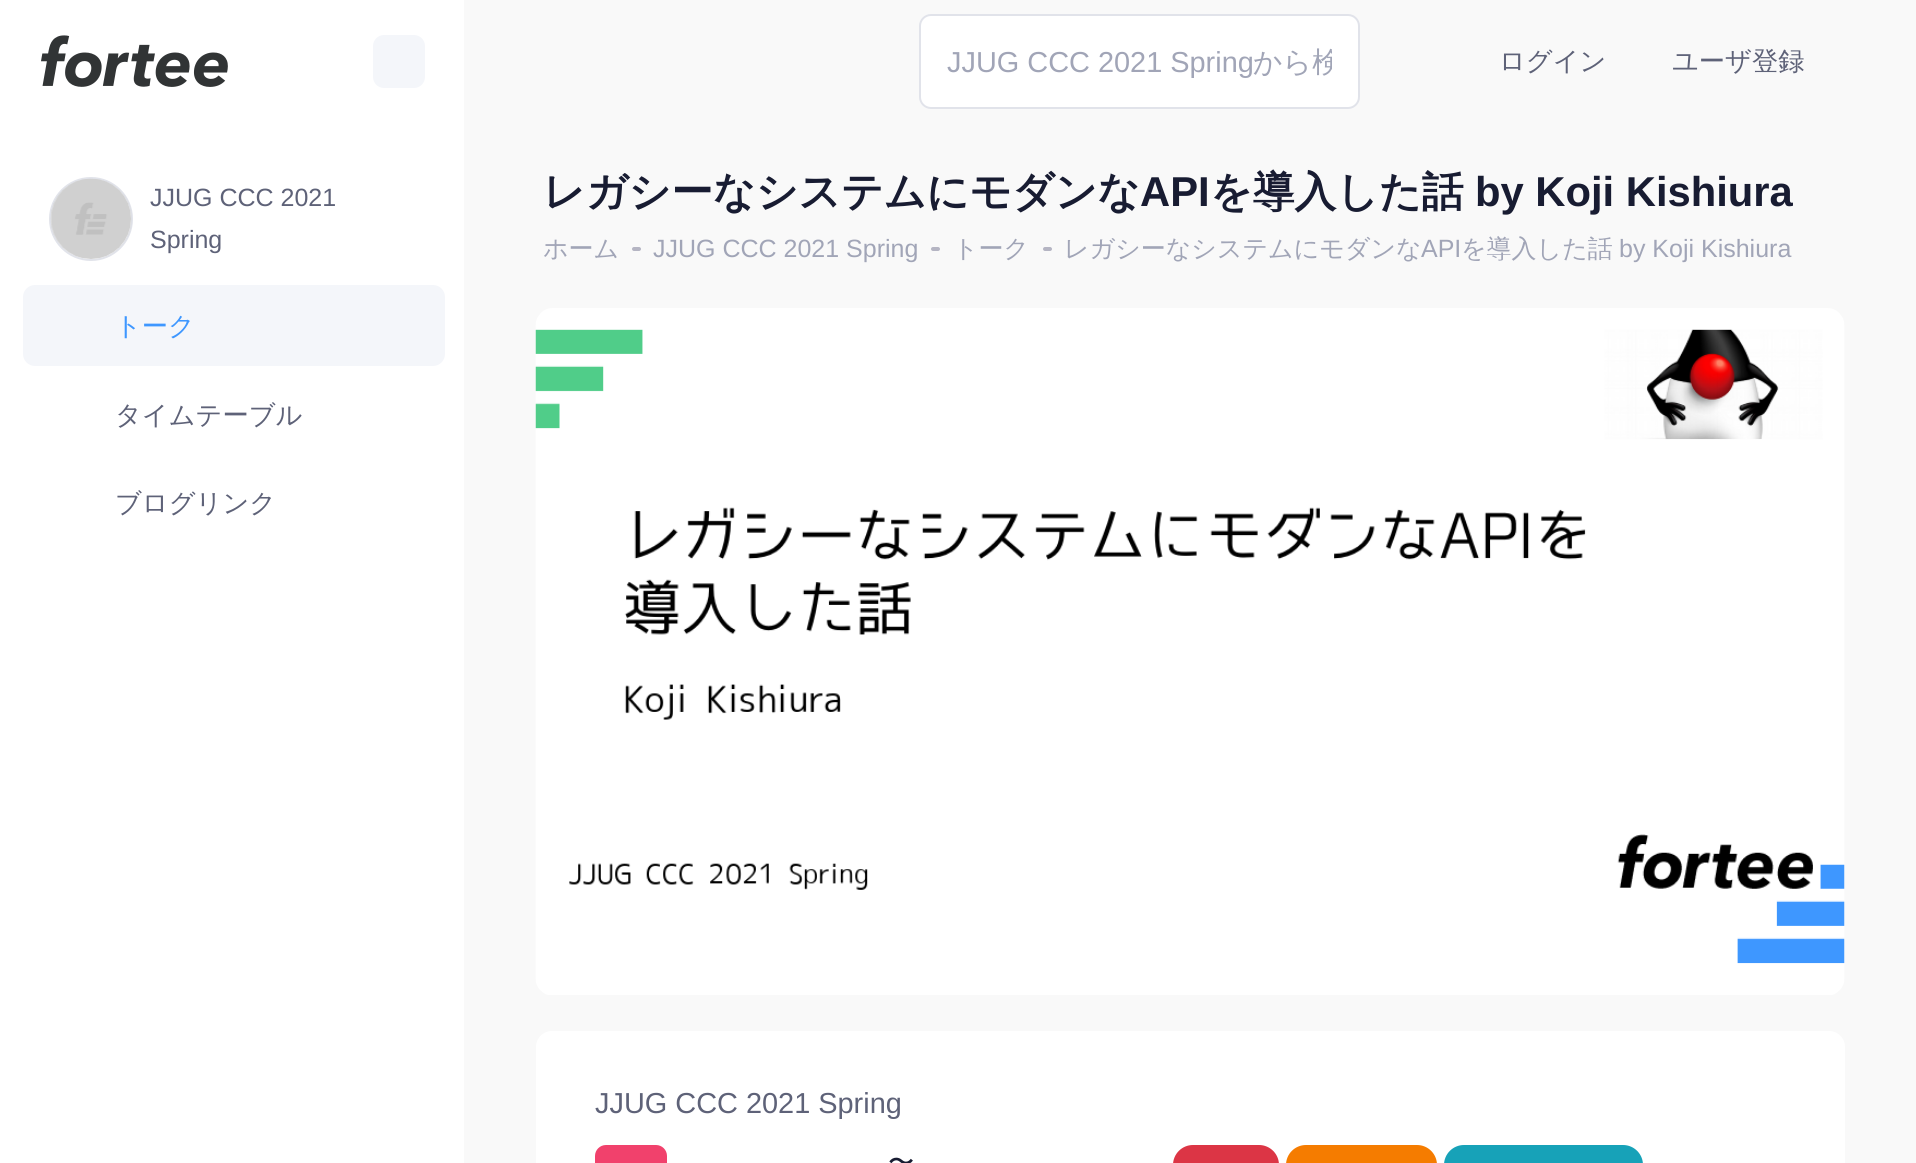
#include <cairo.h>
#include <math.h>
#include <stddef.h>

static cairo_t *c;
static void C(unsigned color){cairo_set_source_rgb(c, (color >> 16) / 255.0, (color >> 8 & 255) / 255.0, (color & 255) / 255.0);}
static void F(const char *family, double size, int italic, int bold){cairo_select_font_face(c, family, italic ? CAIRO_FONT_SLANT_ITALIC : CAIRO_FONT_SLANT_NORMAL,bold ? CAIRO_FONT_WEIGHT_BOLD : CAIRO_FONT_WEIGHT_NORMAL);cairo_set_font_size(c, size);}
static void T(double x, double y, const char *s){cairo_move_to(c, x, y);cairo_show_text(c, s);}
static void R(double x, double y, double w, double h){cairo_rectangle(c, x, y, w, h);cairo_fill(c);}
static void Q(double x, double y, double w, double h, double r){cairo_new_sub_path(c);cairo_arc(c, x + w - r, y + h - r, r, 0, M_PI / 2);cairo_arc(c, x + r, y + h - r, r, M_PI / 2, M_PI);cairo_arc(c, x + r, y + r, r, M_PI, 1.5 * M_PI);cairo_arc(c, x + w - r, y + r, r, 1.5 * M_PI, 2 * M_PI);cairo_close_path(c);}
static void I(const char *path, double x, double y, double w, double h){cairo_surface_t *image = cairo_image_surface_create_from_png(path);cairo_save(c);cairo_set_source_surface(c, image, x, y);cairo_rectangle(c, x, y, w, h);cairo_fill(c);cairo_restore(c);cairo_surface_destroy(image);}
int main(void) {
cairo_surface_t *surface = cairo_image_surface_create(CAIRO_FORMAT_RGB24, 1916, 1163);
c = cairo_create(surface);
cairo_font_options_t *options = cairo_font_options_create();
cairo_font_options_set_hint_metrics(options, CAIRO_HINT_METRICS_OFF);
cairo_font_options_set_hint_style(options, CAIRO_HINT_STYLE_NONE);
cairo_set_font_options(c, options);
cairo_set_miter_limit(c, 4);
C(0xf9f9f9);
cairo_paint(c);
C(0xffffff);
Q(920,15,439,93,11);
cairo_fill_preserve(c);
C(0xe1e3ea);
cairo_stroke(c);
F("Liberation Sans",28.9,0,0);
C(0xa1a5b7);
T(947,72,"JJUG CCC 2021 Spring");
cairo_save(c);
cairo_rectangle(c,947,44,385,38);
cairo_clip(c);
F("WenQuanYi Zen Hei Medium",28.9,0,0);
T(1253,72,"から検");
cairo_restore(c);
F("WenQuanYi Zen Hei Medium",26.25,0,0);
C(0x5e6278);
T(1499,70,"ログイン");
T(1672,70,"ユーザ登録");
C(0xffffff);
R(0,0,464,1163);
I("1.png",41,35,187,52);
C(0xf4f6fa);
Q(373,35,52,53,11);
cairo_fill(c);
cairo_arc(c,91,219,41,0,2 * M_PI);
C(0xe1e3ea);
cairo_stroke(c);
I("2.png",50,178,82,81);
F("Liberation Sans",25,0,0);
C(0x5e6278);
T(150,206,"JJUG CCC 2021");
T(150,248,"Spring");
C(0xf4f6fa);
Q(23,285,422,81,12);
cairo_fill(c);
F("WenQuanYi Zen Hei Medium",26.25,0,0);
C(0x3e97ff);
T(115,335,"トーク");
C(0x5e6278);
T(115,424,"タイムテーブル");
T(115,512,"ブログリンク");
F("WenQuanYi Zen Hei",41.75,0,1);
C(0x181c32);
T(543,206,"レガシーなシステムにモダンな");
F("Liberation Sans",41.75,0,1);
T(1140,206,"API");
F("WenQuanYi Zen Hei",41.75,0,1);
T(1210,206,"を導入した話");
F("Liberation Sans",41.75,0,1);
T(1475,206,"by Koji Kishiura");
F("WenQuanYi Zen Hei Medium",25,0,0);
C(0xa1a5b7);
T(543,257,"ホーム");
C(0xb5b5c3);
Q(632,247,9,4,2);
cairo_fill(c);
F("Liberation Sans",25,0,0);
C(0xa1a5b7);
T(653,257,"JJUG CCC 2021 Spring");
C(0xb5b5c3);
Q(931,247,9,4,2);
cairo_fill(c);
F("WenQuanYi Zen Hei Medium",25,0,0);
C(0xa1a5b7);
T(953,257,"トーク");
C(0xb5b5c3);
Q(1043,247,9,4,2);
cairo_fill(c);
C(0xa1a5b7);
T(1064,257,"レガシーなシステムにモダンな");
F("Liberation Sans",25,0,0);
T(1421,257,"API");
F("WenQuanYi Zen Hei Medium",25,0,0);
T(1461,257,"を導入した話");
F("Liberation Sans",25,0,0);
T(1619,257,"by Koji Kishiura");
I("3.png",535,308,1310,687);
C(0xffffff);
Q(536,1031,1309,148,16);
cairo_fill(c);
F("Liberation Sans",28.9,0,0);
C(0x5e6278);
T(595,1113,"JJUG CCC 2021 Spring");
C(0xf1416c);
Q(595,1145,72,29,11);
cairo_fill(c);
F("WenQuanYi Zen Hei Medium",26.25,0,0);
C(0x181c32);
T(888,1171,"〜");
C(0xdc3545);
Q(1173,1145,106,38,20);
cairo_fill(c);
C(0xf57c00);
Q(1286,1145,151,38,20);
cairo_fill(c);
C(0x17a2b8);
Q(1444,1145,199,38,20);
cairo_fill(c);
cairo_surface_write_to_png(surface, "o.png");
cairo_font_options_destroy(options);
cairo_destroy(c);
cairo_surface_destroy(surface);
return 0;
}
